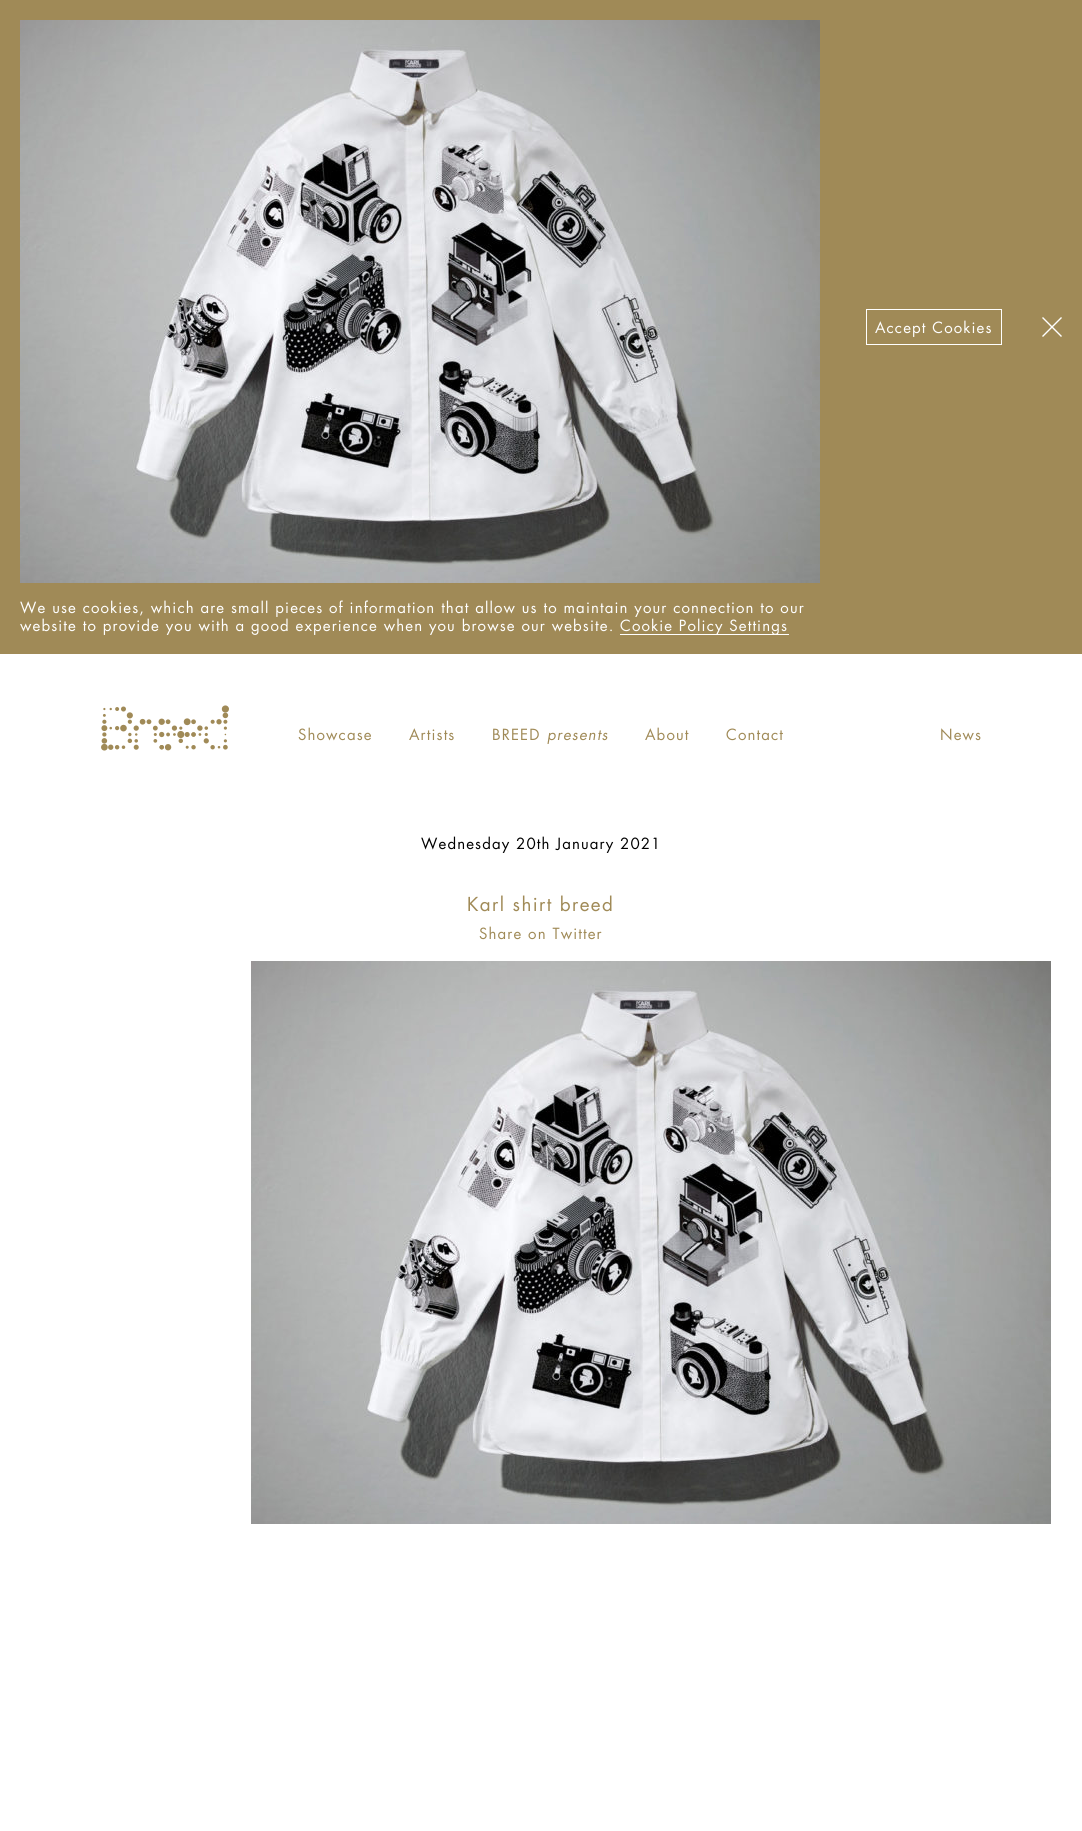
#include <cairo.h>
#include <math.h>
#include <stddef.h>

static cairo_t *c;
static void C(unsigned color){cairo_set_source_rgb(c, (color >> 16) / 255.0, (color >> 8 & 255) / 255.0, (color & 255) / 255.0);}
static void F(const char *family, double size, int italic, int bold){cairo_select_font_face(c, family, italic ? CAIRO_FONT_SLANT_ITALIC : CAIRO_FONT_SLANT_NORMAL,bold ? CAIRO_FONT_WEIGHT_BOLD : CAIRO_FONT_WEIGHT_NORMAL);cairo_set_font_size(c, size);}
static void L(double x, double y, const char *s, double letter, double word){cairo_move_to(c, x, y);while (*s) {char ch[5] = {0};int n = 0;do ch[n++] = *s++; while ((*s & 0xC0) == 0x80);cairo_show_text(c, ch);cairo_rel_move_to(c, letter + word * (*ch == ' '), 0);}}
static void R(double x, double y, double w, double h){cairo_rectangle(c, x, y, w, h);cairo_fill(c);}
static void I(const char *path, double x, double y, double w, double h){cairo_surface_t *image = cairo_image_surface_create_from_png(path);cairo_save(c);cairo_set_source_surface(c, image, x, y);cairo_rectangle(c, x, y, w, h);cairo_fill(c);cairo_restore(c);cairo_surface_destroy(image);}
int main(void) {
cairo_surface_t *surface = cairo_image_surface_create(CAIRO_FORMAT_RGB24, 1082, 1831);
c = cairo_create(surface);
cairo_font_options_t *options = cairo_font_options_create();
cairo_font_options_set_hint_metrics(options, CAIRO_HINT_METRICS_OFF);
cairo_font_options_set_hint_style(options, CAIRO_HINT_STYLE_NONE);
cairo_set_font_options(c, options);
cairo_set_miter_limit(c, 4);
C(0xffffff);
cairo_paint(c);
C(0xa08a57);
R(0,0,1082,654);
cairo_rectangle(c,866.5,309.5,135,35);
C(0xffffff);
cairo_set_line_width(c,1);
cairo_stroke(c);
F("Futura",15,0,0);
L(875,333,"Accept Cookies",1.12,0);
cairo_new_path(c);
cairo_move_to(c,1061.5,317.5);
cairo_line_to(c,1042.5,336.5);
cairo_move_to(c,1042.5,317.5);
cairo_line_to(c,1061.5,336.5);
cairo_set_line_width(c,1.4);
cairo_stroke(c);
I("1.png",20,20,800,563);
L(20,613,"We use cookies, which are small pieces of information that allow us to maintain your connection to our",1.12,0);
L(20,631,"website to provide you with a good experience when you browse our website.",1.12,0);
R(620,634,169,1);
L(620,631,"Cookie Policy Settings",1.12,0);
I("2.png",101,705,128,46);
C(0xa08a57);
L(298,740,"Showcase",1.12,0);
L(409,740,"Artists",1.12,0);
L(492,740,"BREED",1.12,0);
F("Futura",15,1,0);
L(547,740,"presents",1.12,0);
F("Futura",15,0,0);
L(645,740,"About",1.12,0);
L(726,740,"Contact",1.12,0);
L(940,740,"News",1.12,0);
C(0x000000);
L(421,849,"Wednesday 20th January 2021",1.12,0);
F("Futura",18.75,0,0);
C(0xa08a57);
L(467,911,"Karl shirt breed",1.4,0);
F("Futura",15,0,0);
L(479,939,"Share on Twitter",1.12,0);
I("1.png",251,961,800,563);
cairo_surface_write_to_png(surface, "o.png");
cairo_font_options_destroy(options);
cairo_destroy(c);
cairo_surface_destroy(surface);
return 0;
}
